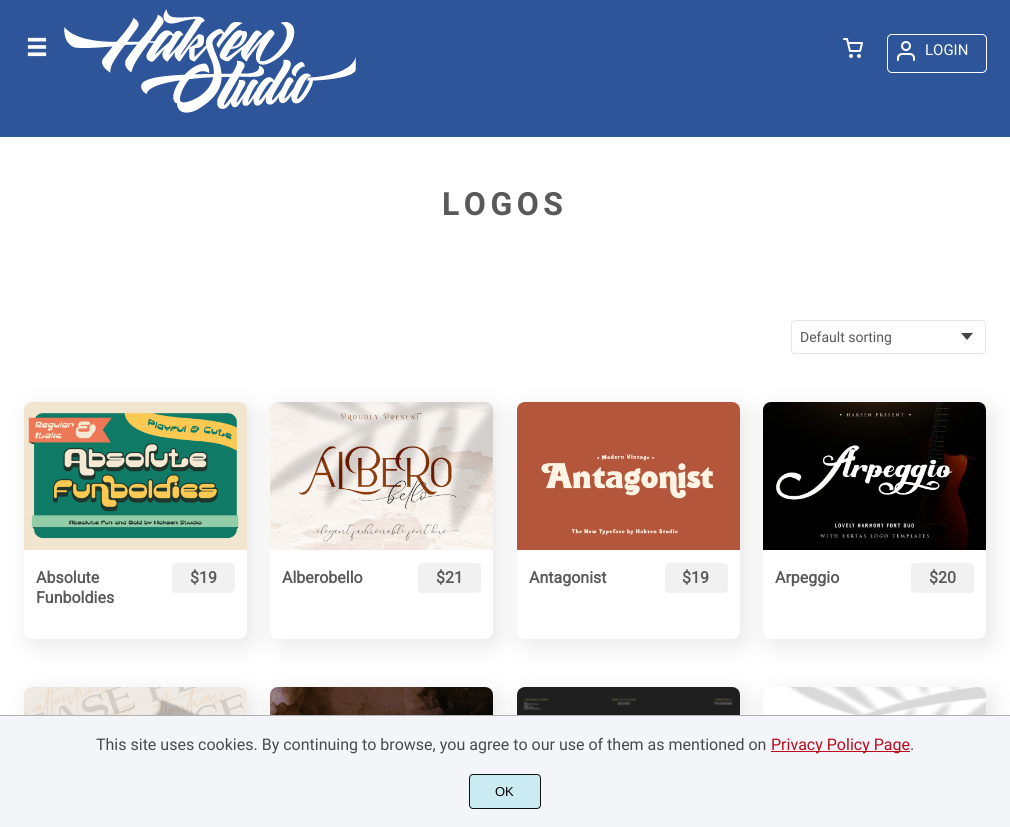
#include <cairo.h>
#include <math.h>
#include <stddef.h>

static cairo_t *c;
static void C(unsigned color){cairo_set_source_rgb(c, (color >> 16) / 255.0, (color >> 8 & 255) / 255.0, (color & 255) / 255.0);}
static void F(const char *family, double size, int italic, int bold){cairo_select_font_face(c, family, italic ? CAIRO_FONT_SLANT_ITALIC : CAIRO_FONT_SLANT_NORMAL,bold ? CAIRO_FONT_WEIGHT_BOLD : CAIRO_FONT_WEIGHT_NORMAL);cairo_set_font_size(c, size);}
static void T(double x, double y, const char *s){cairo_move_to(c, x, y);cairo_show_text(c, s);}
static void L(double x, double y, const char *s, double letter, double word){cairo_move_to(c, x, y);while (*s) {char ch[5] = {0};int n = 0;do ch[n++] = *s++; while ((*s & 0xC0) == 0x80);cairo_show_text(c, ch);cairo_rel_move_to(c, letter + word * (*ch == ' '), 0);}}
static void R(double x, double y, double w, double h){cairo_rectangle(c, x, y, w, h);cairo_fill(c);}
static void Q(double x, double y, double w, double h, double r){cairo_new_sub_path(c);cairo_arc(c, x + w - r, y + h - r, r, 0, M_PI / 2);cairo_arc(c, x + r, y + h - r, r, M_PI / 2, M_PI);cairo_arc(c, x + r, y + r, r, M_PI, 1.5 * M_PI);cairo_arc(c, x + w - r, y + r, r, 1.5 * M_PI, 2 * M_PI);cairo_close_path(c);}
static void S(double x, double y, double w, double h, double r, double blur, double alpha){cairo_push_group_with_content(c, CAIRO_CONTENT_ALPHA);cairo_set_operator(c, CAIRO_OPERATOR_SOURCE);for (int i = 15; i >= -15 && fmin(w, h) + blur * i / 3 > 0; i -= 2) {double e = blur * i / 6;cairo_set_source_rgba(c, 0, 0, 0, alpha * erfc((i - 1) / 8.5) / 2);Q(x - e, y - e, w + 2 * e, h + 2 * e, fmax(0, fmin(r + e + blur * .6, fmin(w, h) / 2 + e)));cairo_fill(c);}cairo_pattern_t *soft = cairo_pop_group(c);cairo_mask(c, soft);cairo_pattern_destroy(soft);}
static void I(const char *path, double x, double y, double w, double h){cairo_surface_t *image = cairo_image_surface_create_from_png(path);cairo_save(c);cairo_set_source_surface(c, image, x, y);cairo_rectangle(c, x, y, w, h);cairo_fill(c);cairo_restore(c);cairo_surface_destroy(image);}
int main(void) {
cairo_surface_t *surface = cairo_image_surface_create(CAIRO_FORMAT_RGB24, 1010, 827);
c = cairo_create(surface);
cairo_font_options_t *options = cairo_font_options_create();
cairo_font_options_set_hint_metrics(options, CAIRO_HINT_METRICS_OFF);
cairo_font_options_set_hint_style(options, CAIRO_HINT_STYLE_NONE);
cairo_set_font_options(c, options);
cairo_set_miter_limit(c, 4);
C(0xffffff);
cairo_paint(c);
C(0x2e549a);
R(0,0,1010,137);
I("1.png",27,37,20,20);
I("2.png",64,9,292,104);
I("3.png",843,38,20,20);
Q(887.5,34.5,99,38,4.5);
C(0xffffff);
cairo_set_line_width(c,1);
cairo_stroke(c);
I("4.png",897,41,18,20);
F("Roboto",15,0,0);
T(925,55,"LOGIN");
F("Roboto",32,0,1);
C(0x595959);
L(442,215,"LOGOS",4.5,0);
C(0x444444);
cairo_set_fill_rule(c,CAIRO_FILL_RULE_EVEN_ODD);
cairo_new_path(c);
cairo_move_to(c,967,340);
cairo_line_to(c,961,333);
cairo_line_to(c,973,333);
cairo_close_path(c);
cairo_fill(c);
Q(791.5,320.5,194,33,3.5);
C(0xe6e6e6);
cairo_stroke(c);
F("Roboto",14,0,0);
C(0x595959);
T(800,342,"Default sorting");
C(0x000000);
S(30,408,223,237,8,12,.1);
C(0xffffff);
Q(24,402,223,237,8);
cairo_fill(c);
I("5.png",24,402,223,148);
F("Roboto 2",16,0,1);
C(0x595959);
T(36,583,"Absolute");
T(36,603,"Funboldies");
C(0xf1f1f1);
Q(172,563,63,30,4);
cairo_fill(c);
C(0x595959);
T(190,583,"$19");
C(0x000000);
S(276,408,223,237,8,12,.1);
C(0xffffff);
Q(270,402,223,237,8);
cairo_fill(c);
I("6.png",270,402,223,148);
C(0x595959);
T(282,583,"Alberobello");
C(0xf1f1f1);
Q(418,563,63,30,4);
cairo_fill(c);
C(0x595959);
T(436,583,"$21");
C(0x000000);
S(523,408,223,237,8,12,.1);
C(0xffffff);
Q(517,402,223,237,8);
cairo_fill(c);
I("7.png",517,402,223,148);
C(0x595959);
T(529,583,"Antagonist");
C(0xf1f1f1);
Q(665,563,63,30,4);
cairo_fill(c);
C(0x595959);
T(682,583,"$19");
C(0x000000);
S(769,408,223,237,8,12,.1);
C(0xffffff);
Q(763,402,223,237,8);
cairo_fill(c);
I("8.png",763,402,223,148);
C(0x595959);
T(775,583,"Arpeggio");
C(0xf1f1f1);
Q(911,563,63,30,4);
cairo_fill(c);
C(0x595959);
T(929,583,"$20");
C(0x000000);
S(30,693,223,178,8,12,.1);
I("9.png",24,687,223,28);
S(276,693,223,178,8,12,.1);
I("10.png",270,687,223,28);
S(523,693,223,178,8,12,.1);
I("11.png",517,687,223,28);
S(769,693,223,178,8,12,.1);
I("12.png",763,687,223,28);
C(0xf3f5f9);
R(0,716,1010,111);
C(0xafb1b3);
R(0,715,1010,1);
F("Roboto",16,0,0);
C(0x4a4a4a);
T(96,750,"This site uses cookies. By continuing to browse, you agree to our use of them as mentioned on");
C(0xbb0a1e);
R(771,751,139,1);
T(771,750,"Privacy Policy Page");
C(0x4a4a4a);
T(910,750,".");
C(0xcaebf2);
Q(469.5,774.5,71,34,3.5);
cairo_fill_preserve(c);
C(0x111111);
cairo_stroke(c);
F("Liberation Sans",13,0,0);
C(0x000000);
T(495,796,"OK");
cairo_surface_write_to_png(surface, "o.png");
cairo_font_options_destroy(options);
cairo_destroy(c);
cairo_surface_destroy(surface);
return 0;
}
